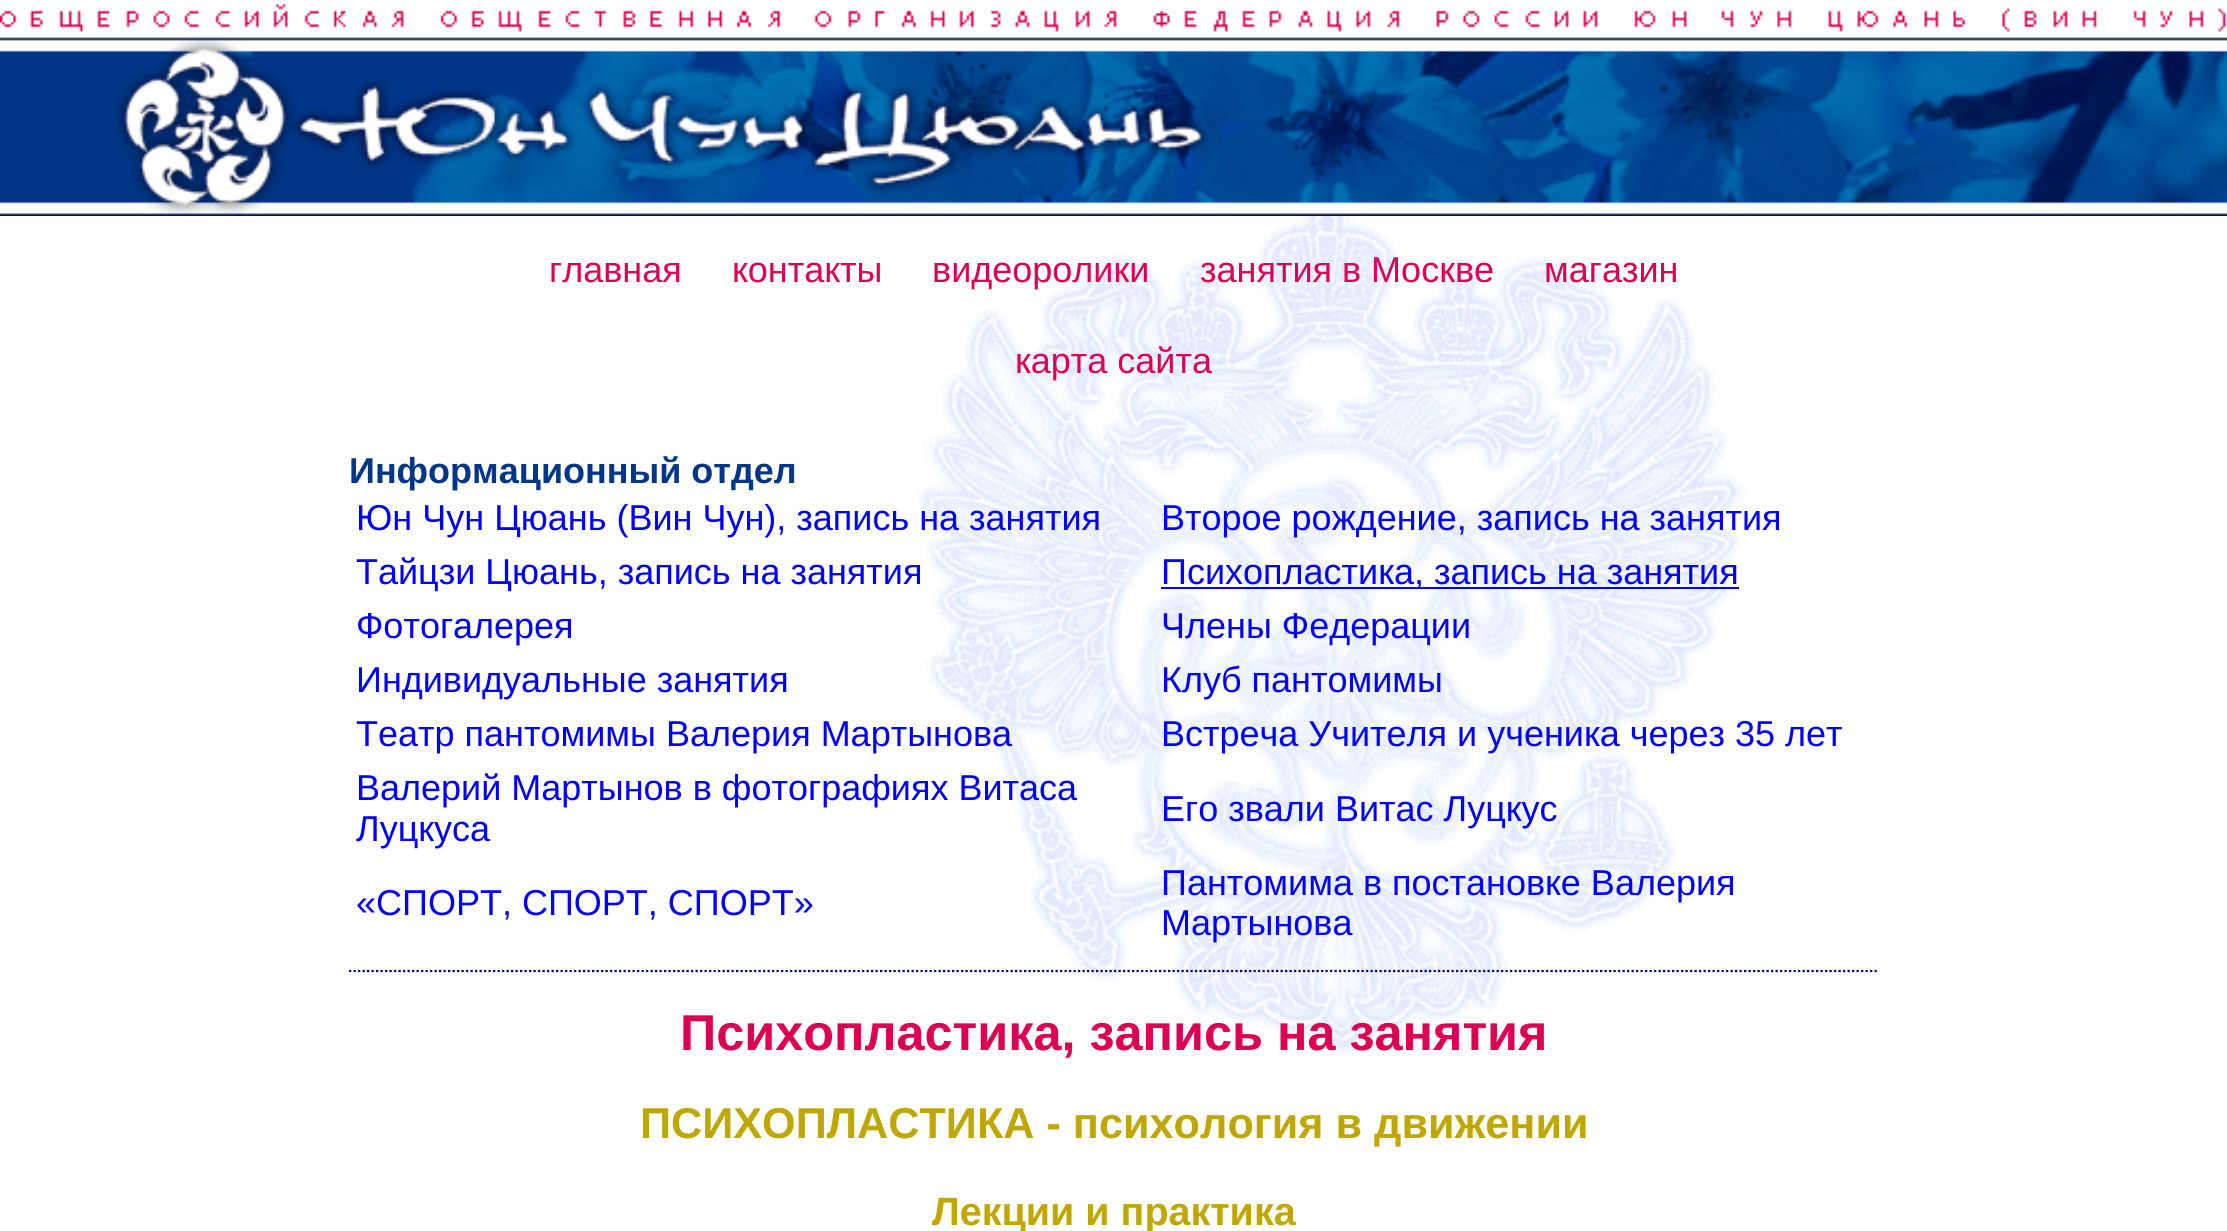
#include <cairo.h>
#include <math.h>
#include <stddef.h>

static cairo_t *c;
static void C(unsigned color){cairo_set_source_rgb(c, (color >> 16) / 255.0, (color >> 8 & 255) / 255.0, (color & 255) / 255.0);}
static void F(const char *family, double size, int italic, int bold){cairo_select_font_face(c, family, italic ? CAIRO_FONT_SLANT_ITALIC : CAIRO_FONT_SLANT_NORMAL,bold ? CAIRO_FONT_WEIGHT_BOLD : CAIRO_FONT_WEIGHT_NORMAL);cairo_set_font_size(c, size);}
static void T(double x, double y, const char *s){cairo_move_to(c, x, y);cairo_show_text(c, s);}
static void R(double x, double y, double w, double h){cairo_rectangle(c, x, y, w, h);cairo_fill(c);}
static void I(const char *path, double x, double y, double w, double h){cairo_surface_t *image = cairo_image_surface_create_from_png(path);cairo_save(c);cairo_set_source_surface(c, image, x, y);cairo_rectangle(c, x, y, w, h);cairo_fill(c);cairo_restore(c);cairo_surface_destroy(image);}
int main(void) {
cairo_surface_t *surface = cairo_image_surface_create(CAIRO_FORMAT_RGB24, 2227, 1231);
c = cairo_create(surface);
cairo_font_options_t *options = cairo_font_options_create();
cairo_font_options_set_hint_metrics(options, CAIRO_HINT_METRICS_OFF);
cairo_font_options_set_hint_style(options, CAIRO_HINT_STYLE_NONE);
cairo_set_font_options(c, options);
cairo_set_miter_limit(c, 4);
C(0xffffff);
cairo_paint(c);
I("1.png",918,216,830,839);
I("2.png",0,3,2227,213);
F("Liberation Sans",36,0,0);
C(0xdd0052);
T(549,282,"главная");
T(732,282,"контакты");
T(932,282,"видеоролики");
T(1200,282,"занятия в Москве");
T(1544,282,"магазин");
T(1015,373,"карта сайта");
F("Liberation Sans",36,0,1);
C(0x003687);
T(349,483,"Информационный отдел");
F("Liberation Sans",36,0,0);
C(0x0000ff);
T(356,530,"Юн Чун Цюань (Вин Чун), запись на занятия");
T(1161,530,"Второе рождение, запись на занятия");
T(356,584,"Тайцзи Цюань, запись на занятия");
R(1161,587,578,2);
T(1161,584,"Психопластика, запись на занятия");
T(356,638,"Фотогалерея");
T(1161,638,"Члены Федерации");
T(356,692,"Индивидуальные занятия");
T(1161,692,"Клуб пантомимы");
T(356,746,"Театр пантомимы Валерия Мартынова");
T(1161,746,"Встреча Учителя и ученика через 35 лет");
T(356,800,"Валерий Мартынов в фотографиях Витаса");
T(356,841,"Луцкуса");
T(1161,821,"Его звали Витас Луцкус");
T(356,915,"«СПОРТ, СПОРТ, СПОРТ»");
T(1161,895,"Пантомима в постановке Валерия");
T(1161,935,"Мартынова");
cairo_new_path(c);
cairo_move_to(c,349,971);
cairo_line_to(c,1879,971);
C(0x000080);
cairo_set_line_width(c,2.2);
cairo_set_dash(c,(double[]){2.25,2.25},2,0);
cairo_stroke(c);
F("Liberation Sans",50.4,0,1);
C(0xdd0052);
T(680,1050,"Психопластика, запись на занятия");
F("Liberation Sans",43.2,0,1);
C(0xbfa700);
T(640,1138,"ПСИХОПЛАСТИКА - психология в движении");
F("Liberation Sans",39.5,0,1);
T(932,1225,"Лекции и практика");
cairo_surface_write_to_png(surface, "o.png");
cairo_font_options_destroy(options);
cairo_destroy(c);
cairo_surface_destroy(surface);
return 0;
}
